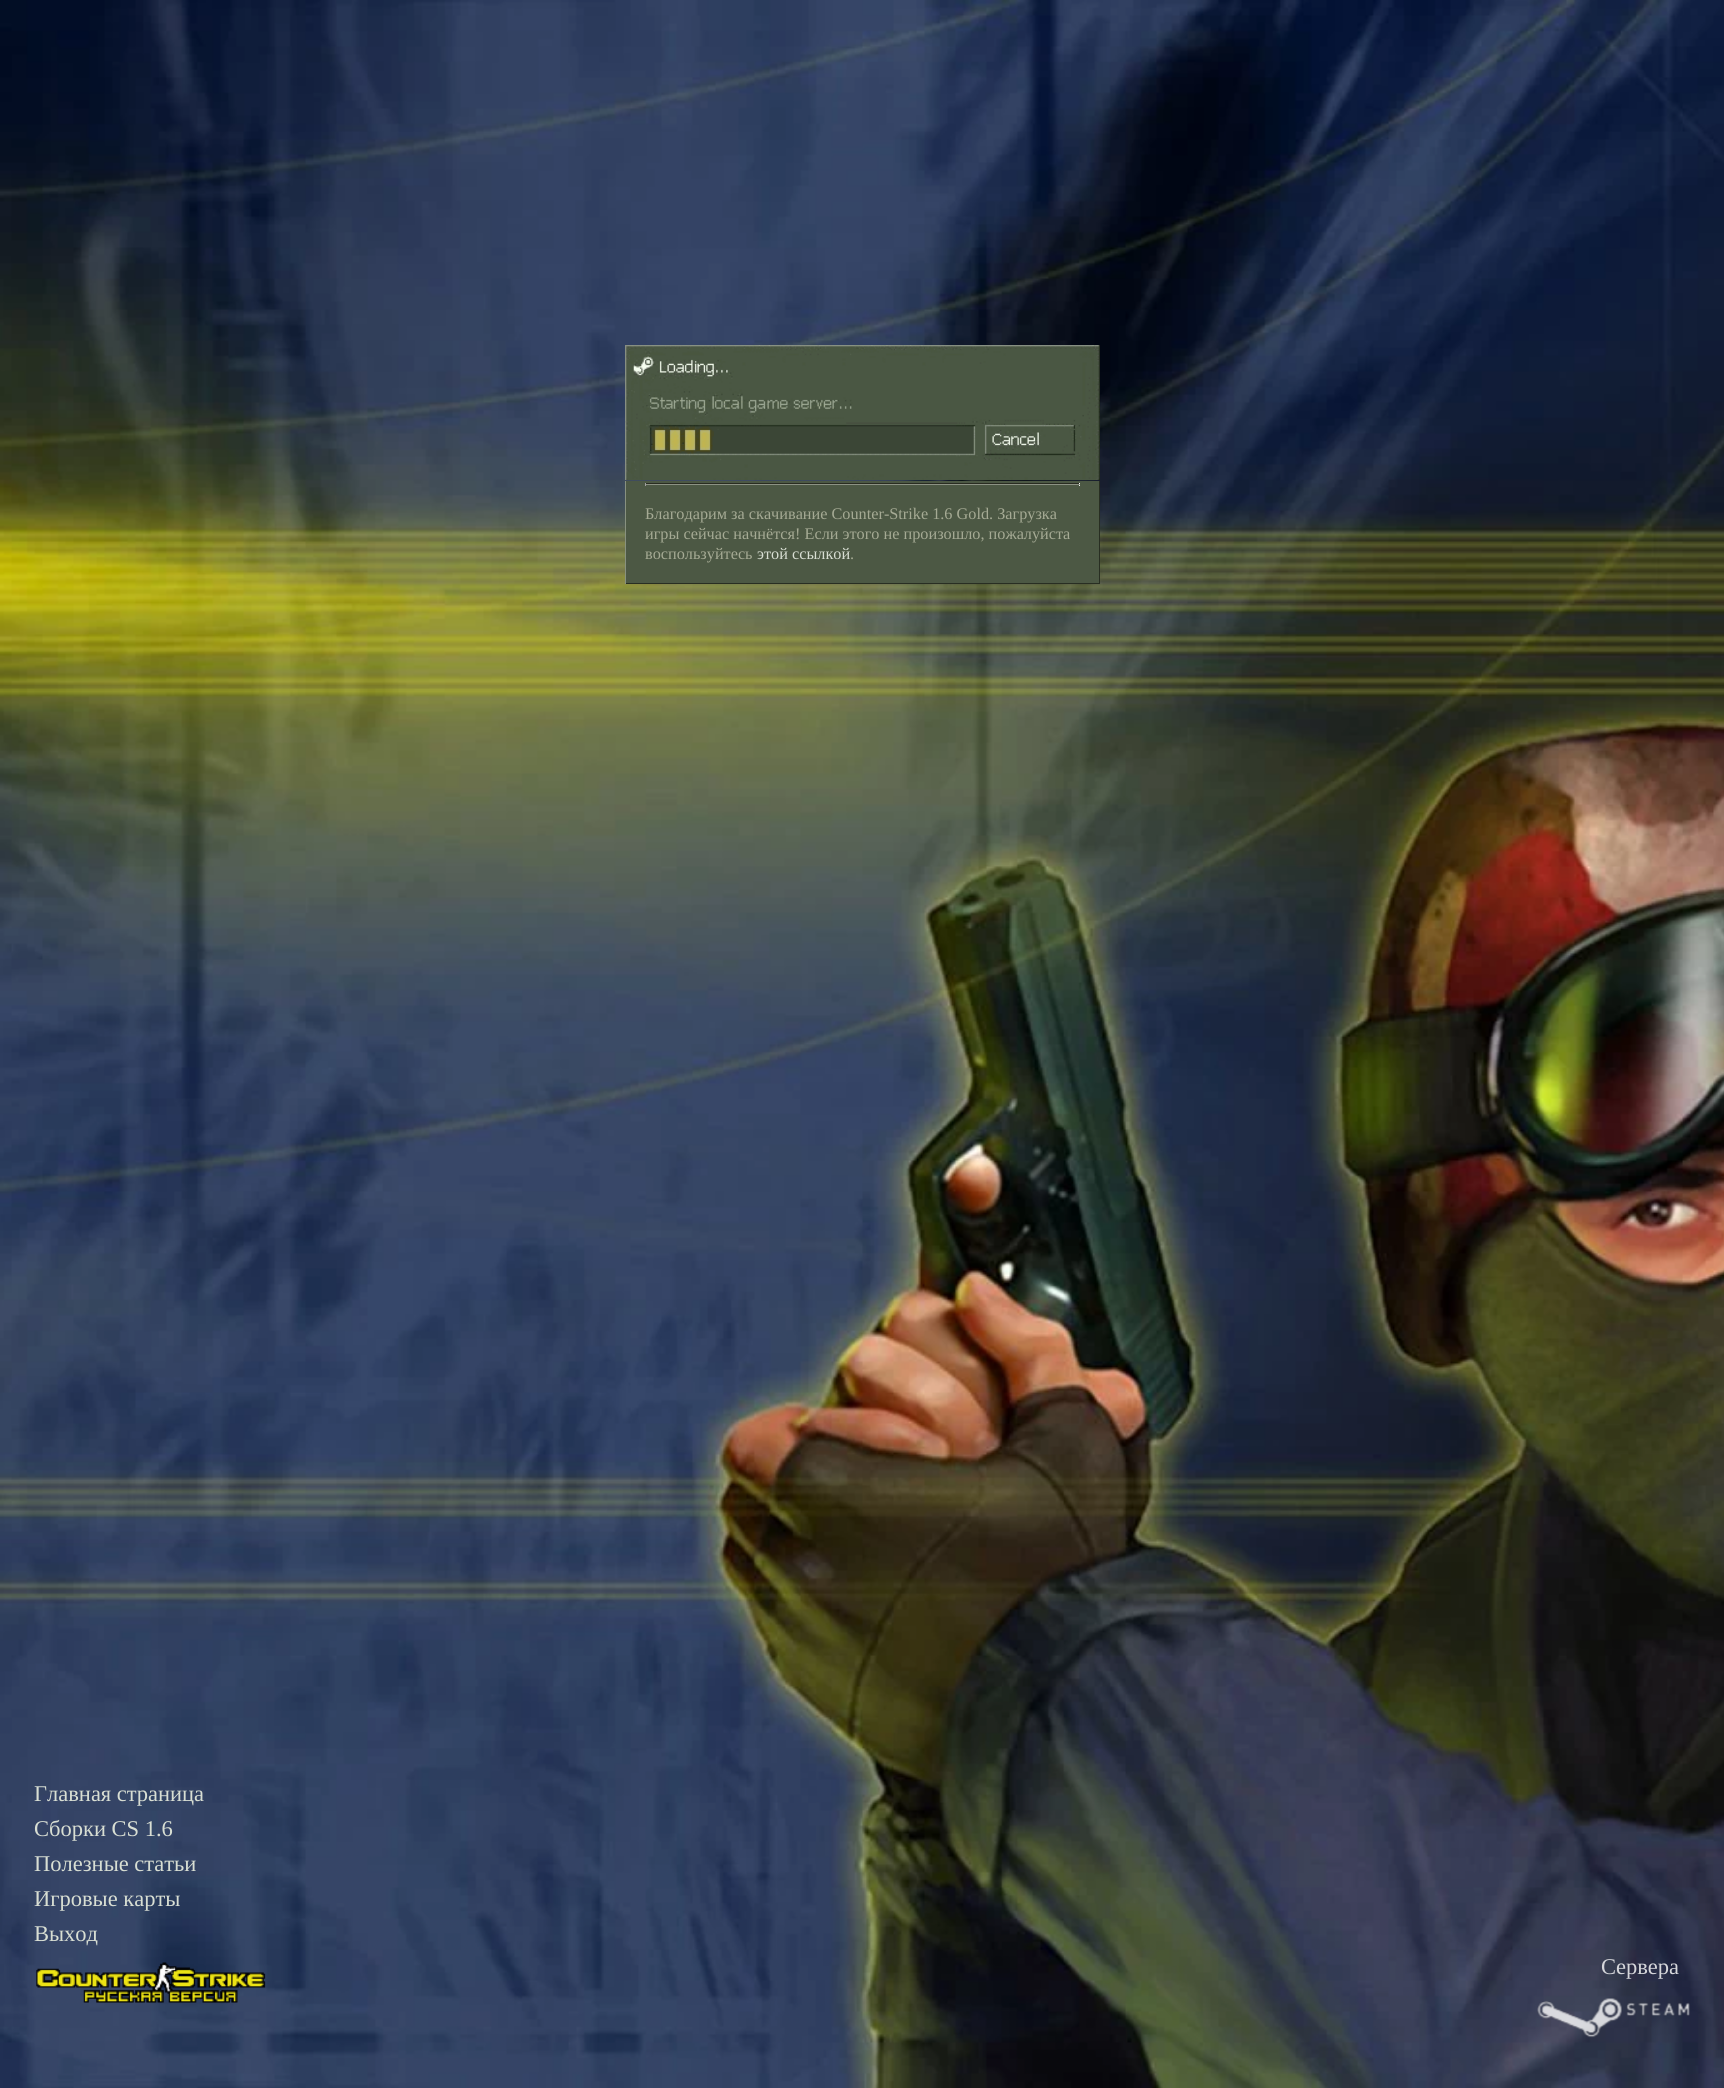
#include <cairo.h>
#include <math.h>
#include <stddef.h>

static cairo_t *c;
static void C(unsigned color){cairo_set_source_rgb(c, (color >> 16) / 255.0, (color >> 8 & 255) / 255.0, (color & 255) / 255.0);}
static void F(const char *family, double size, int italic, int bold){cairo_select_font_face(c, family, italic ? CAIRO_FONT_SLANT_ITALIC : CAIRO_FONT_SLANT_NORMAL,bold ? CAIRO_FONT_WEIGHT_BOLD : CAIRO_FONT_WEIGHT_NORMAL);cairo_set_font_size(c, size);}
static void T(double x, double y, const char *s){cairo_move_to(c, x, y);cairo_show_text(c, s);}
static void R(double x, double y, double w, double h){cairo_rectangle(c, x, y, w, h);cairo_fill(c);}
static void I(const char *path, double x, double y, double w, double h){cairo_surface_t *image = cairo_image_surface_create_from_png(path);cairo_save(c);cairo_set_source_surface(c, image, x, y);cairo_rectangle(c, x, y, w, h);cairo_fill(c);cairo_restore(c);cairo_surface_destroy(image);}
int main(void) {
cairo_surface_t *surface = cairo_image_surface_create(CAIRO_FORMAT_RGB24, 1724, 2088);
c = cairo_create(surface);
cairo_font_options_t *options = cairo_font_options_create();
cairo_font_options_set_hint_metrics(options, CAIRO_HINT_METRICS_OFF);
cairo_font_options_set_hint_style(options, CAIRO_HINT_STYLE_NONE);
cairo_set_font_options(c, options);
cairo_set_miter_limit(c, 4);
C(0xffffff);
cairo_paint(c);
I("1.png",0,0,1724,2088);
I("2.png",625,345,475,135);
C(0x4c5844);
R(626,481,473,102);
C(0x282e22);
R(1099,481,1,103);
R(625,583,475,1);
C(0x889180);
R(625,481,1,103);
C(0x292c21);
R(645,483,435,1);
C(0xeeeeee);
R(1079,483,1,3);
C(0x8c9284);
R(645,484,435,1);
C(0x9f9f9f);
R(645,483,1,3);
F("Liberation Serif",16.25,0,0);
C(0xa5aa94);
T(645,519,"Благодарим за скачивание Counter-Strike 1.6 Gold. Загрузка");
T(645,539,"игры сейчас начнётся! Если этого не произошло, пожалуйста");
T(645,559,"воспользуйтесь");
C(0xd8ded3);
T(757,559,"этой ссылкой");
C(0xa5aa94);
T(850,559,".");
F("Liberation Serif",22.5,0,0);
C(0xd8ded3);
T(34,1801,"Главная страница");
T(34,1836,"Сборки CS 1.6");
T(34,1871,"Полезные статьи");
T(34,1906,"Игровые карты");
T(34,1941,"Выход");
I("3.png",36,1962,230,41);
C(0xd5d6da);
T(1601,1974,"Сервера");
I("4.png",1537,1998,153,40);
cairo_surface_write_to_png(surface, "o.png");
cairo_font_options_destroy(options);
cairo_destroy(c);
cairo_surface_destroy(surface);
return 0;
}
